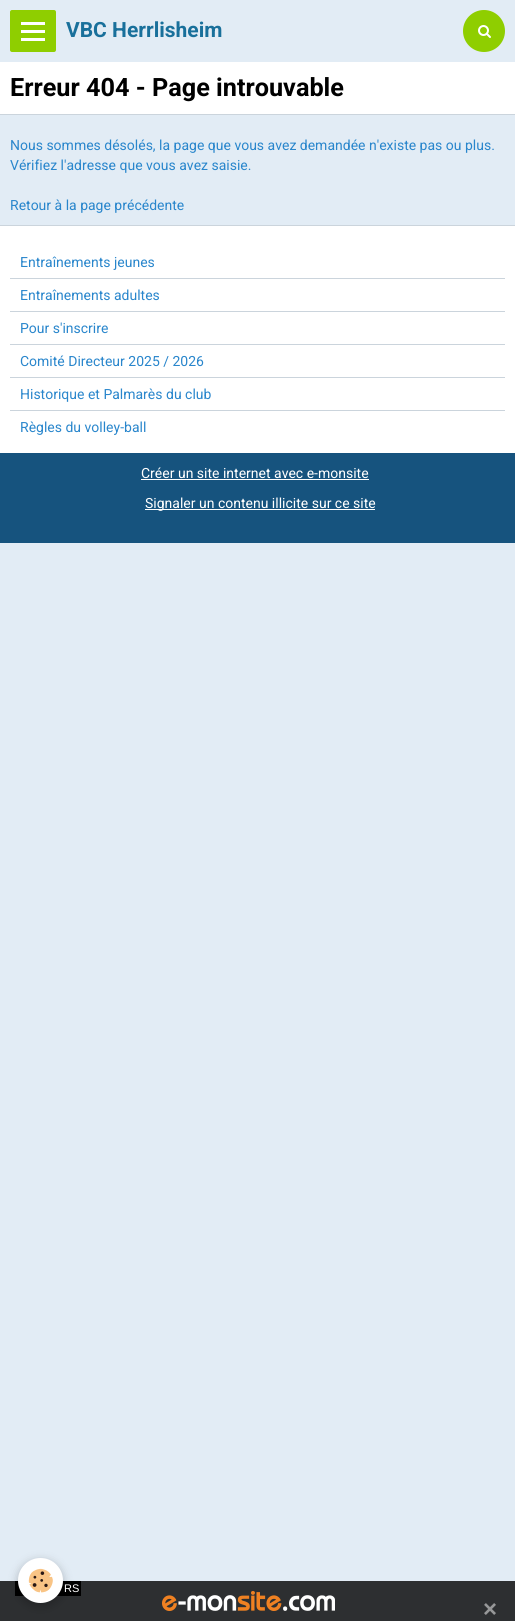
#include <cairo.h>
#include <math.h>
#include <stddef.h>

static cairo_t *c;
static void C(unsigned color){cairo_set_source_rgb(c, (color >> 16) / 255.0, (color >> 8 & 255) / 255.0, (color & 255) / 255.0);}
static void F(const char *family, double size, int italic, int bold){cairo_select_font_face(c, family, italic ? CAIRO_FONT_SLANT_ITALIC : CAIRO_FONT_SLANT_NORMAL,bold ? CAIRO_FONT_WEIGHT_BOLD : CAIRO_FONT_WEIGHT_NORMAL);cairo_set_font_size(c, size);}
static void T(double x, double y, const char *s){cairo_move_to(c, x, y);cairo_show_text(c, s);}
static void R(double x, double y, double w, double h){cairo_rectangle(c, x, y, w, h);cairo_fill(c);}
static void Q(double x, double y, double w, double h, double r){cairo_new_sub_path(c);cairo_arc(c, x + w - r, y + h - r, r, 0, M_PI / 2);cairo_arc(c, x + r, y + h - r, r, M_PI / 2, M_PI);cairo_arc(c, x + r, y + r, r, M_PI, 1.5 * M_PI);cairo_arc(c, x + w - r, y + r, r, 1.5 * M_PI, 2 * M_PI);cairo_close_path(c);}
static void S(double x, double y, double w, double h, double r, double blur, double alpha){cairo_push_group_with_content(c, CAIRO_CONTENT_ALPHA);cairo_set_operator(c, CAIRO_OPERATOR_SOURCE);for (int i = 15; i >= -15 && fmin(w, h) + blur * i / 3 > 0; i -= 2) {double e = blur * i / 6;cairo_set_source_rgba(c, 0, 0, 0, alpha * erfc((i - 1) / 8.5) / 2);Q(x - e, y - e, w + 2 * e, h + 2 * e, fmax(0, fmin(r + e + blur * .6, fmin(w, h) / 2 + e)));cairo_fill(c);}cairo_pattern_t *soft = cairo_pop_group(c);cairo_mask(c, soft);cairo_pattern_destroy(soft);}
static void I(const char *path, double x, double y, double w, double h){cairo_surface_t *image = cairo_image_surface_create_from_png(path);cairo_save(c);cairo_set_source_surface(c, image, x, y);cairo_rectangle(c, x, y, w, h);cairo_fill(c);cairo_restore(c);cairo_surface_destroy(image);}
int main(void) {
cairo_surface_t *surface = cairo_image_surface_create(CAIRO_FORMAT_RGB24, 515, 1621);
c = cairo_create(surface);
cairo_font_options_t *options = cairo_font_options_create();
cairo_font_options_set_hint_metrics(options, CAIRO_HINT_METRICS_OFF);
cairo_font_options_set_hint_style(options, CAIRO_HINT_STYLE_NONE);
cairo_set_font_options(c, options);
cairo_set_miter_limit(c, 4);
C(0xe2ecf5);
cairo_paint(c);
C(0x8fce00);
Q(10,10,46,42,2);
cairo_fill(c);
C(0xffffff);
R(21,30,24,3);
R(21,22,24,3);
R(21,38,24,3);
F("Roboto",21,0,1);
C(0x19709b);
T(66,37,"VBC Herrlisheim");
C(0x8fce00);
cairo_new_path(c);
cairo_arc(c,484,31,21,0,2 * M_PI);
cairo_fill(c);
I("1.png",478,25,13,13);
C(0xffffff);
R(0,62,515,52);
C(0xcbd4dc);
R(0,114,515,1);
F("Roboto",25.25,0,1);
C(0x000000);
T(10,96,"Erreur 404 - Page introuvable");
F("Roboto",14,0,0);
C(0x2986cc);
T(10,150,"Nous sommes désolés, la page que vous avez demandée n'existe pas ou plus.");
T(10,170,"Vérifiez l'adresse que vous avez saisie.");
T(10,210,"Retour à la page précédente");
C(0xffffff);
R(0,226,515,227);
C(0xcbd4dc);
R(0,225,515,1);
R(10,278,495,1);
C(0x2986cc);
T(20,267,"Entraînements jeunes");
C(0xcbd4dc);
R(10,311,495,1);
C(0x2986cc);
T(20,300,"Entraînements adultes");
C(0xcbd4dc);
R(10,344,495,1);
C(0x2986cc);
T(20,333,"Pour s'inscrire");
C(0xcbd4dc);
R(10,377,495,1);
C(0x2986cc);
T(20,366,"Comité Directeur 2025 / 2026");
C(0xcbd4dc);
R(10,410,495,1);
C(0x2986cc);
T(20,399,"Historique et Palmarès du club");
T(20,432,"Règles du volley-ball");
C(0x16537e);
R(0,453,515,90);
C(0xffffff);
T(141,478,"Créer un site internet avec e-monsite");
R(141,479,228,1);
R(145,509,230,1);
T(145,508,"Signaler un contenu illicite sur ce site");
C(0x2d2f31);
R(0,1581,515,40);
C(0x000000);
R(15,1581,66,15);
C(0x000000);
S(18,1561,45,45,22.5,5,.24);
C(0xffffff);
cairo_arc(c,40.5,1580.5,22.5,0,2 * M_PI);
cairo_fill(c);
I("2.png",28,1568,25,25);
F("Liberation Sans",11,0,0);
T(64,1592,"RS");
I("3.png",162,1591,173,20);
F("Liberation Sans",24,0,1);
C(0x969798);
T(483,1617,"×");
cairo_surface_write_to_png(surface, "o.png");
cairo_font_options_destroy(options);
cairo_destroy(c);
cairo_surface_destroy(surface);
return 0;
}
